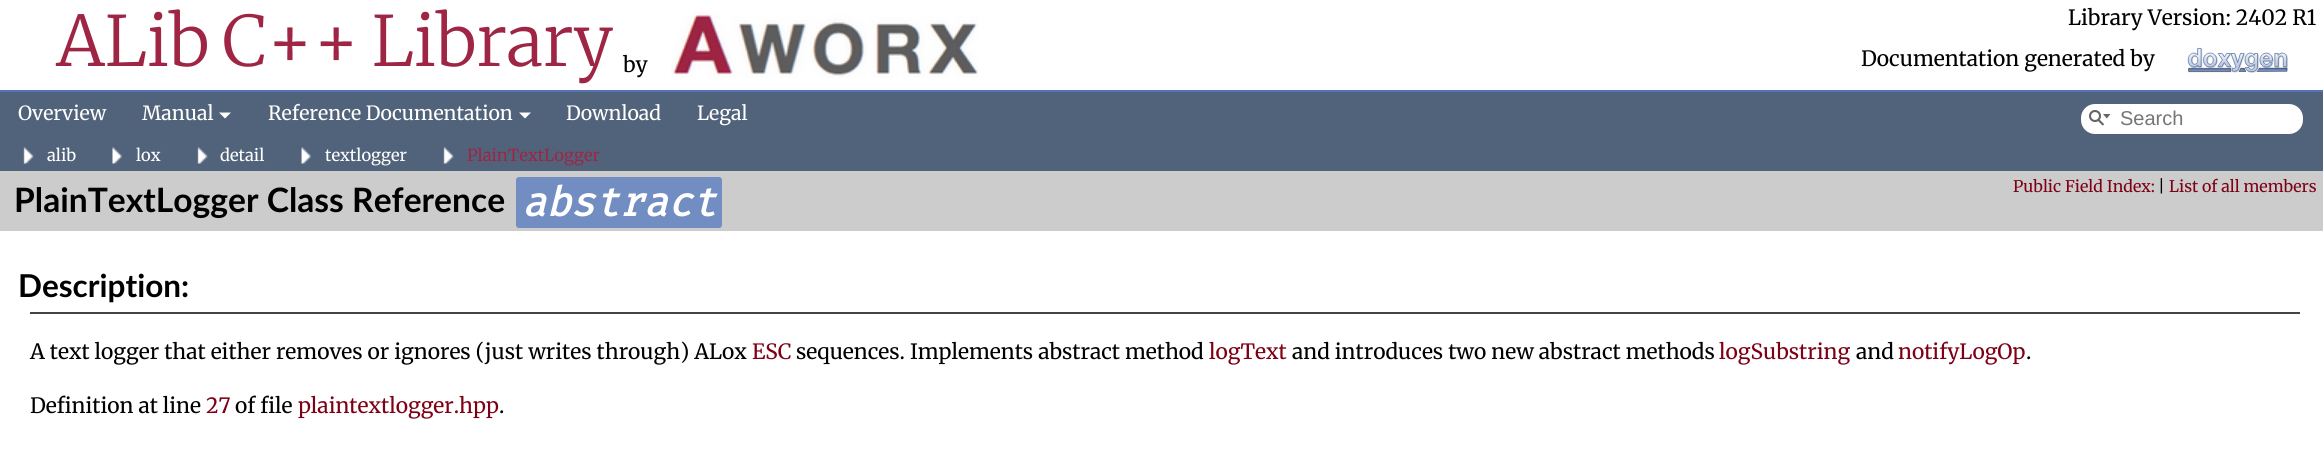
#include <cairo.h>
#include <math.h>
#include <stddef.h>

static cairo_t *c;
static void C(unsigned color){cairo_set_source_rgb(c, (color >> 16) / 255.0, (color >> 8 & 255) / 255.0, (color & 255) / 255.0);}
static void F(const char *family, double size, int italic, int bold){cairo_select_font_face(c, family, italic ? CAIRO_FONT_SLANT_ITALIC : CAIRO_FONT_SLANT_NORMAL,bold ? CAIRO_FONT_WEIGHT_BOLD : CAIRO_FONT_WEIGHT_NORMAL);cairo_set_font_size(c, size);}
static void T(double x, double y, const char *s){cairo_move_to(c, x, y);cairo_show_text(c, s);}
static void L(double x, double y, const char *s, double letter, double word){cairo_move_to(c, x, y);while (*s) {char ch[5] = {0};int n = 0;do ch[n++] = *s++; while ((*s & 0xC0) == 0x80);cairo_show_text(c, ch);cairo_rel_move_to(c, letter + word * (*ch == ' '), 0);}}
static void R(double x, double y, double w, double h){cairo_rectangle(c, x, y, w, h);cairo_fill(c);}
static void Q(double x, double y, double w, double h, double r){cairo_new_sub_path(c);cairo_arc(c, x + w - r, y + h - r, r, 0, M_PI / 2);cairo_arc(c, x + r, y + h - r, r, M_PI / 2, M_PI);cairo_arc(c, x + r, y + r, r, M_PI, 1.5 * M_PI);cairo_arc(c, x + w - r, y + r, r, 1.5 * M_PI, 2 * M_PI);cairo_close_path(c);}
static void I(const char *path, double x, double y, double w, double h){cairo_surface_t *image = cairo_image_surface_create_from_png(path);cairo_save(c);cairo_set_source_surface(c, image, x, y);cairo_rectangle(c, x, y, w, h);cairo_fill(c);cairo_restore(c);cairo_surface_destroy(image);}
int main(void) {
cairo_surface_t *surface = cairo_image_surface_create(CAIRO_FORMAT_RGB24, 2323, 462);
c = cairo_create(surface);
cairo_font_options_t *options = cairo_font_options_create();
cairo_font_options_set_hint_metrics(options, CAIRO_HINT_METRICS_OFF);
cairo_font_options_set_hint_style(options, CAIRO_HINT_STYLE_NONE);
cairo_set_font_options(c, options);
cairo_set_miter_limit(c, 4);
C(0xffffff);
cairo_paint(c);
C(0x5373b4);
R(0,90,2323,2);
F("Merriweather Light",69.25,0,0);
C(0x9e2544);
L(56,66,"ALib C++ Library",0,-4);
F("Merriweather",21,0,0);
C(0x000000);
T(623,72,"by");
I("1.png",671,12,308,66);
T(2068,25,"Library Version: 2402 R1");
T(1861,66,"Documentation generated by");
I("2.png",2187,47,101,26);
C(0x51637b);
R(0,92,2323,79);
F("Merriweather",19.5,0,0);
C(0xffffff);
T(18,120,"Overview");
T(142,120,"Manual");
cairo_new_path(c);
cairo_move_to(c,219,112.5);
cairo_line_to(c,231,112.5);
cairo_line_to(c,225,118.5);
cairo_close_path(c);
cairo_fill(c);
T(268,120,"Reference Documentation");
cairo_new_path(c);
cairo_move_to(c,519,112.5);
cairo_line_to(c,531,112.5);
cairo_line_to(c,525,118.5);
cairo_close_path(c);
cairo_fill(c);
T(566,120,"Download");
T(697,120,"Legal");
Q(2081,104,222,30,14);
cairo_fill(c);
I("3.png",2089,110,22,16);
F("Liberation Sans",20,0,0);
C(0x757575);
T(2120,125,"Search");
I("4.png",23,147,11,17);
F("Merriweather",16.5,0,0);
C(0xffffff);
T(47,161,"alib");
I("5.png",112,147,10,17);
T(136,161,"lox");
I("4.png",197,147,11,17);
T(220,161,"detail");
I("6.png",301,147,10,17);
T(325,161,"textlogger");
I("7.png",443,147,11,17);
C(0x9e2544);
T(467,161,"PlainTextLogger");
C(0xcccccc);
R(0,171,2323,60);
F("Lato",33.6,0,1);
C(0x000000);
T(14,212,"PlainTextLogger Class Reference");
C(0x728dc1);
Q(516,177,206,51,3);
cairo_fill(c);
F("Fira Mono",40.5,1,1);
C(0xffffff);
T(522,216,"abstract");
F("Merriweather",16,0,0);
C(0x7e0015);
T(2013,192,"Public Field Index:");
C(0x000000);
T(2158,192,"|");
C(0x7e0015);
T(2169,192,"List of all members");
F("Lato",31.5,0,1);
C(0x000000);
T(18,297,"Description:");
C(0x444444);
R(30,312,2270,2);
F("Merriweather",21,0,0);
C(0x000000);
T(30,359,"A text logger that either removes or ignores (just writes through) ALox");
C(0x7e0015);
T(752,359,"ESC");
C(0x000000);
T(796,359,"sequences. Implements abstract method");
C(0x7e0015);
T(1209,359,"logText");
C(0x000000);
T(1292,359,"and introduces two new abstract methods");
C(0x7e0015);
T(1719,359,"logSubstring");
C(0x000000);
T(1856,359,"and");
C(0x7e0015);
T(1898,359,"notifyLogOp");
C(0x000000);
T(2026,359,".");
T(30,413,"Definition at line");
C(0x7e0015);
T(206,413,"27");
C(0x000000);
T(235,413,"of file");
C(0x7e0015);
T(298,413,"plaintextlogger.hpp");
C(0x000000);
T(499,413,".");
cairo_surface_write_to_png(surface, "o.png");
cairo_font_options_destroy(options);
cairo_destroy(c);
cairo_surface_destroy(surface);
return 0;
}
